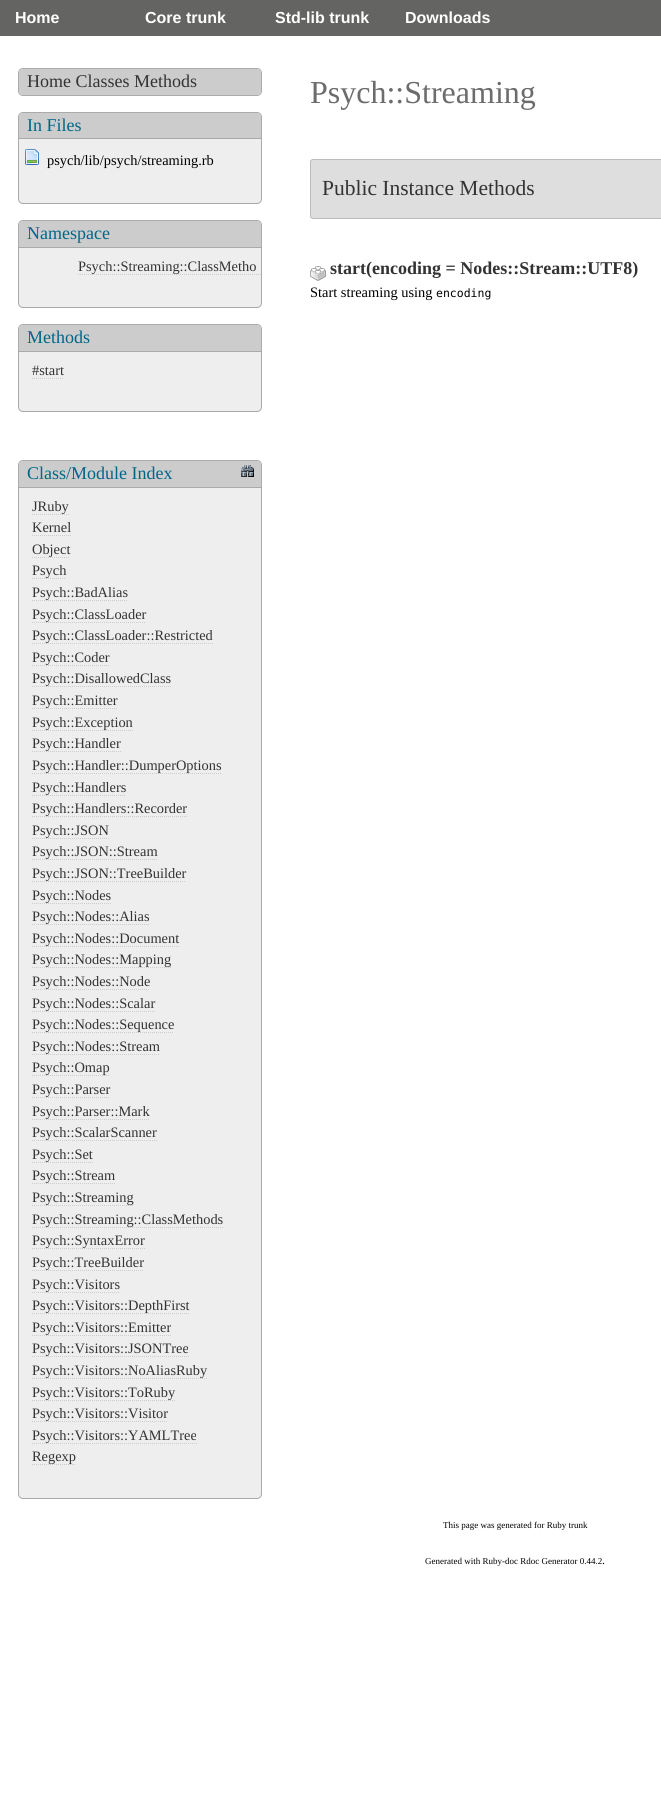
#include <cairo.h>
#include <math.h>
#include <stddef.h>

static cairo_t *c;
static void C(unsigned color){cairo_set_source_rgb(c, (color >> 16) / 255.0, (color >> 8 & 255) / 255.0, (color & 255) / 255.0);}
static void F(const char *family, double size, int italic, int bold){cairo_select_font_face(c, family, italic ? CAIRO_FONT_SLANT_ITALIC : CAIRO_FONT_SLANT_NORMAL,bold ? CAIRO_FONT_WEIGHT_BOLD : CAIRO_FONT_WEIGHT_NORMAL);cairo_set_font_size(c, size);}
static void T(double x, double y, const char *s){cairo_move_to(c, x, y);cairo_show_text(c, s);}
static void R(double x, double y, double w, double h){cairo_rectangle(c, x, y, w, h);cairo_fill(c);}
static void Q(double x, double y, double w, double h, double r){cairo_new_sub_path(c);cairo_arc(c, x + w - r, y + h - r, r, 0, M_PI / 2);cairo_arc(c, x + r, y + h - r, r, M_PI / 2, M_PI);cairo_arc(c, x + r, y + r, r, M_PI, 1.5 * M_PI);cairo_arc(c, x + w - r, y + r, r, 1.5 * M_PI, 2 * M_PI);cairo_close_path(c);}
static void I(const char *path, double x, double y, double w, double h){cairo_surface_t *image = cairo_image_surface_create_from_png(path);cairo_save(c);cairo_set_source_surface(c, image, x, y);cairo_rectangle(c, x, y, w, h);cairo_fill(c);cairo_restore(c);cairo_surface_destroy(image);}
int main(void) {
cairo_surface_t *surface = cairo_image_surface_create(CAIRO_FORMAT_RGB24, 661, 1811);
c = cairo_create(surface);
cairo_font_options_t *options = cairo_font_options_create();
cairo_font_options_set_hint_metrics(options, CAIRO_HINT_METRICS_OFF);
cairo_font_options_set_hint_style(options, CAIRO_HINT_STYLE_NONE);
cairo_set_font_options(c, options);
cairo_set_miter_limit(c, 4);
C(0xffffff);
cairo_paint(c);
C(0x646462);
R(0,0,661,36);
F("Liberation Sans",16,0,1);
C(0xffffff);
T(15,23,"Home");
T(145,23,"Core trunk");
T(275,23,"Std-lib trunk");
T(405,23,"Downloads");
Q(18.5,68.5,243,27,4.5);
C(0xaaaaaa);
cairo_set_line_width(c,1);
cairo_stroke(c);
C(0xcccccc);
Q(19,69,242,26,4);
cairo_fill(c);
F("Liberation Serif",18,0,0);
C(0x333333);
T(27,87,"Home Classes Methods");
C(0xeeeeee);
Q(18.5,112.5,243,91,4.5);
cairo_fill_preserve(c);
C(0xaaaaaa);
cairo_stroke(c);
C(0xcccccc);
cairo_new_path(c);
cairo_move_to(c,23,113);
cairo_line_to(c,257,113);
cairo_curve_to(c,259,113,261,115,261,117);
cairo_line_to(c,261,139);
cairo_line_to(c,19,139);
cairo_line_to(c,19,117);
cairo_curve_to(c,19,115,21,113,23,113);
cairo_close_path(c);
cairo_fill(c);
C(0xaaaaaa);
R(19,138,242,1);
C(0x006688);
T(27,131,"In Files");
I("1.png",25,149,14,16);
F("Liberation Serif",14.4,0,0);
C(0x000000);
T(47,165,"psych/lib/psych/streaming.rb");
C(0xeeeeee);
Q(18.5,220.5,243,87,4.5);
cairo_fill_preserve(c);
C(0xaaaaaa);
cairo_stroke(c);
C(0xcccccc);
cairo_new_path(c);
cairo_move_to(c,23,221);
cairo_line_to(c,257,221);
cairo_curve_to(c,259,221,261,223,261,225);
cairo_line_to(c,261,248);
cairo_line_to(c,19,248);
cairo_line_to(c,19,225);
cairo_curve_to(c,19,223,21,221,23,221);
cairo_close_path(c);
cairo_fill(c);
C(0xaaaaaa);
R(19,247,242,1);
F("Liberation Serif",18,0,0);
C(0x006688);
T(27,239,"Namespace");
cairo_save(c);
Q(19,221,242,86,4);
cairo_clip(c);
cairo_new_path(c);
cairo_move_to(c,78,274.5);
cairo_line_to(c,269,274.5);
C(0xcdcdcd);
cairo_set_dash(c,(double[]){1,1},2,0);
cairo_stroke(c);
cairo_restore(c);
F("Liberation Serif",14.4,0,0);
C(0x333333);
T(78,271,"Psych::Streaming::ClassMetho");
C(0xeeeeee);
Q(18.5,324.5,243,87,4.5);
cairo_fill_preserve(c);
C(0xaaaaaa);
cairo_stroke(c);
C(0xcccccc);
cairo_new_path(c);
cairo_move_to(c,23,325);
cairo_line_to(c,257,325);
cairo_curve_to(c,259,325,261,327,261,329);
cairo_line_to(c,261,352);
cairo_line_to(c,19,352);
cairo_line_to(c,19,329);
cairo_curve_to(c,19,327,21,325,23,325);
cairo_close_path(c);
cairo_fill(c);
C(0xaaaaaa);
R(19,351,242,1);
F("Liberation Serif",18,0,0);
C(0x006688);
T(27,343,"Methods");
F("Liberation Serif",14.4,0,0);
C(0x333333);
T(32,375,"#start");
cairo_new_path(c);
cairo_move_to(c,32,378.5);
cairo_line_to(c,64,378.5);
C(0xcdcdcd);
cairo_set_dash(c,(double[]){1,1},2,0);
cairo_stroke(c);
C(0xeeeeee);
Q(18.5,460.5,243,1038,4.5);
cairo_fill_preserve(c);
C(0xaaaaaa);
cairo_set_dash(c,NULL,0,0);
cairo_stroke(c);
C(0xcccccc);
cairo_new_path(c);
cairo_move_to(c,23,461);
cairo_line_to(c,257,461);
cairo_curve_to(c,259,461,261,463,261,465);
cairo_line_to(c,261,488);
cairo_line_to(c,19,488);
cairo_line_to(c,19,465);
cairo_curve_to(c,19,463,21,461,23,461);
cairo_close_path(c);
cairo_fill(c);
C(0xaaaaaa);
R(19,487,242,1);
F("Liberation Serif",18,0,0);
C(0x006688);
T(27,479,"Class/Module Index");
I("2.png",241,465,13,12);
cairo_new_path(c);
cairo_move_to(c,32,514.5);
cairo_line_to(c,69,514.5);
C(0xcdcdcd);
cairo_set_dash(c,(double[]){1,1},2,0);
cairo_stroke(c);
F("Liberation Serif",14.4,0,0);
C(0x333333);
T(32,511,"JRuby");
T(32,532,"Kernel");
cairo_new_path(c);
cairo_move_to(c,32,535.5);
cairo_line_to(c,71,535.5);
C(0xcdcdcd);
cairo_stroke(c);
cairo_new_path(c);
cairo_move_to(c,32,557.5);
cairo_line_to(c,70,557.5);
cairo_stroke(c);
C(0x333333);
T(32,554,"Object");
cairo_new_path(c);
cairo_move_to(c,32,578.5);
cairo_line_to(c,66,578.5);
C(0xcdcdcd);
cairo_stroke(c);
C(0x333333);
T(32,575,"Psych");
cairo_new_path(c);
cairo_move_to(c,32,600.5);
cairo_line_to(c,128,600.5);
C(0xcdcdcd);
cairo_stroke(c);
C(0x333333);
T(32,597,"Psych::BadAlias");
cairo_new_path(c);
cairo_move_to(c,32,622.5);
cairo_line_to(c,146,622.5);
C(0xcdcdcd);
cairo_stroke(c);
C(0x333333);
T(32,619,"Psych::ClassLoader");
cairo_new_path(c);
cairo_move_to(c,32,643.5);
cairo_line_to(c,213,643.5);
C(0xcdcdcd);
cairo_stroke(c);
C(0x333333);
T(32,640,"Psych::ClassLoader::Restricted");
cairo_new_path(c);
cairo_move_to(c,32,665.5);
cairo_line_to(c,110,665.5);
C(0xcdcdcd);
cairo_stroke(c);
C(0x333333);
T(32,662,"Psych::Coder");
cairo_new_path(c);
cairo_move_to(c,32,686.5);
cairo_line_to(c,171,686.5);
C(0xcdcdcd);
cairo_stroke(c);
C(0x333333);
T(32,683,"Psych::DisallowedClass");
cairo_new_path(c);
cairo_move_to(c,32,708.5);
cairo_line_to(c,118,708.5);
C(0xcdcdcd);
cairo_stroke(c);
C(0x333333);
T(32,705,"Psych::Emitter");
cairo_new_path(c);
cairo_move_to(c,32,730.5);
cairo_line_to(c,133,730.5);
C(0xcdcdcd);
cairo_stroke(c);
C(0x333333);
T(32,727,"Psych::Exception");
cairo_new_path(c);
cairo_move_to(c,32,751.5);
cairo_line_to(c,121,751.5);
C(0xcdcdcd);
cairo_stroke(c);
C(0x333333);
T(32,748,"Psych::Handler");
cairo_new_path(c);
cairo_move_to(c,32,773.5);
cairo_line_to(c,221,773.5);
C(0xcdcdcd);
cairo_stroke(c);
C(0x333333);
T(32,770,"Psych::Handler::DumperOptions");
cairo_new_path(c);
cairo_move_to(c,32,795.5);
cairo_line_to(c,126,795.5);
C(0xcdcdcd);
cairo_stroke(c);
C(0x333333);
T(32,792,"Psych::Handlers");
cairo_new_path(c);
cairo_move_to(c,32,816.5);
cairo_line_to(c,187,816.5);
C(0xcdcdcd);
cairo_stroke(c);
C(0x333333);
T(32,813,"Psych::Handlers::Recorder");
cairo_new_path(c);
cairo_move_to(c,32,838.5);
cairo_line_to(c,109,838.5);
C(0xcdcdcd);
cairo_stroke(c);
C(0x333333);
T(32,835,"Psych::JSON");
cairo_new_path(c);
cairo_move_to(c,32,859.5);
cairo_line_to(c,158,859.5);
C(0xcdcdcd);
cairo_stroke(c);
C(0x333333);
T(32,856,"Psych::JSON::Stream");
cairo_new_path(c);
cairo_move_to(c,32,881.5);
cairo_line_to(c,186,881.5);
C(0xcdcdcd);
cairo_stroke(c);
C(0x333333);
T(32,878,"Psych::JSON::TreeBuilder");
cairo_new_path(c);
cairo_move_to(c,32,903.5);
cairo_line_to(c,111,903.5);
C(0xcdcdcd);
cairo_stroke(c);
C(0x333333);
T(32,900,"Psych::Nodes");
cairo_new_path(c);
cairo_move_to(c,32,924.5);
cairo_line_to(c,150,924.5);
C(0xcdcdcd);
cairo_stroke(c);
C(0x333333);
T(32,921,"Psych::Nodes::Alias");
cairo_new_path(c);
cairo_move_to(c,32,946.5);
cairo_line_to(c,179,946.5);
C(0xcdcdcd);
cairo_stroke(c);
C(0x333333);
T(32,943,"Psych::Nodes::Document");
cairo_new_path(c);
cairo_move_to(c,32,967.5);
cairo_line_to(c,171,967.5);
C(0xcdcdcd);
cairo_stroke(c);
C(0x333333);
T(32,964,"Psych::Nodes::Mapping");
cairo_new_path(c);
cairo_move_to(c,32,989.5);
cairo_line_to(c,150,989.5);
C(0xcdcdcd);
cairo_stroke(c);
C(0x333333);
T(32,986,"Psych::Nodes::Node");
cairo_new_path(c);
cairo_move_to(c,32,1011.5);
cairo_line_to(c,155,1011.5);
C(0xcdcdcd);
cairo_stroke(c);
C(0x333333);
T(32,1008,"Psych::Nodes::Scalar");
cairo_new_path(c);
cairo_move_to(c,32,1032.5);
cairo_line_to(c,174,1032.5);
C(0xcdcdcd);
cairo_stroke(c);
C(0x333333);
T(32,1029,"Psych::Nodes::Sequence");
cairo_new_path(c);
cairo_move_to(c,32,1054.5);
cairo_line_to(c,160,1054.5);
C(0xcdcdcd);
cairo_stroke(c);
C(0x333333);
T(32,1051,"Psych::Nodes::Stream");
cairo_new_path(c);
cairo_move_to(c,32,1075.5);
cairo_line_to(c,110,1075.5);
C(0xcdcdcd);
cairo_stroke(c);
C(0x333333);
T(32,1072,"Psych::Omap");
cairo_new_path(c);
cairo_move_to(c,32,1097.5);
cairo_line_to(c,110,1097.5);
C(0xcdcdcd);
cairo_stroke(c);
C(0x333333);
T(32,1094,"Psych::Parser");
cairo_new_path(c);
cairo_move_to(c,32,1119.5);
cairo_line_to(c,150,1119.5);
C(0xcdcdcd);
cairo_stroke(c);
C(0x333333);
T(32,1116,"Psych::Parser::Mark");
cairo_new_path(c);
cairo_move_to(c,32,1140.5);
cairo_line_to(c,157,1140.5);
C(0xcdcdcd);
cairo_stroke(c);
C(0x333333);
T(32,1137,"Psych::ScalarScanner");
cairo_new_path(c);
cairo_move_to(c,32,1162.5);
cairo_line_to(c,93,1162.5);
C(0xcdcdcd);
cairo_stroke(c);
C(0x333333);
T(32,1159,"Psych::Set");
cairo_new_path(c);
cairo_move_to(c,32,1183.5);
cairo_line_to(c,115,1183.5);
C(0xcdcdcd);
cairo_stroke(c);
C(0x333333);
T(32,1180,"Psych::Stream");
cairo_new_path(c);
cairo_move_to(c,32,1205.5);
cairo_line_to(c,134,1205.5);
C(0xcdcdcd);
cairo_stroke(c);
C(0x333333);
T(32,1202,"Psych::Streaming");
cairo_new_path(c);
cairo_move_to(c,32,1227.5);
cairo_line_to(c,223,1227.5);
C(0xcdcdcd);
cairo_stroke(c);
C(0x333333);
T(32,1224,"Psych::Streaming::ClassMethods");
cairo_new_path(c);
cairo_move_to(c,32,1248.5);
cairo_line_to(c,145,1248.5);
C(0xcdcdcd);
cairo_stroke(c);
C(0x333333);
T(32,1245,"Psych::SyntaxError");
cairo_new_path(c);
cairo_move_to(c,32,1270.5);
cairo_line_to(c,144,1270.5);
C(0xcdcdcd);
cairo_stroke(c);
C(0x333333);
T(32,1267,"Psych::TreeBuilder");
cairo_new_path(c);
cairo_move_to(c,32,1292.5);
cairo_line_to(c,120,1292.5);
C(0xcdcdcd);
cairo_stroke(c);
C(0x333333);
T(32,1289,"Psych::Visitors");
cairo_new_path(c);
cairo_move_to(c,32,1313.5);
cairo_line_to(c,190,1313.5);
C(0xcdcdcd);
cairo_stroke(c);
C(0x333333);
T(32,1310,"Psych::Visitors::DepthFirst");
cairo_new_path(c);
cairo_move_to(c,32,1335.5);
cairo_line_to(c,171,1335.5);
C(0xcdcdcd);
cairo_stroke(c);
C(0x333333);
T(32,1332,"Psych::Visitors::Emitter");
cairo_new_path(c);
cairo_move_to(c,32,1356.5);
cairo_line_to(c,189,1356.5);
C(0xcdcdcd);
cairo_stroke(c);
C(0x333333);
T(32,1353,"Psych::Visitors::JSONTree");
cairo_new_path(c);
cairo_move_to(c,32,1378.5);
cairo_line_to(c,207,1378.5);
C(0xcdcdcd);
cairo_stroke(c);
C(0x333333);
T(32,1375,"Psych::Visitors::NoAliasRuby");
cairo_new_path(c);
cairo_move_to(c,32,1400.5);
cairo_line_to(c,175,1400.5);
C(0xcdcdcd);
cairo_stroke(c);
C(0x333333);
T(32,1397,"Psych::Visitors::ToRuby");
cairo_new_path(c);
cairo_move_to(c,32,1421.5);
cairo_line_to(c,168,1421.5);
C(0xcdcdcd);
cairo_stroke(c);
C(0x333333);
T(32,1418,"Psych::Visitors::Visitor");
cairo_new_path(c);
cairo_move_to(c,32,1443.5);
cairo_line_to(c,197,1443.5);
C(0xcdcdcd);
cairo_stroke(c);
C(0x333333);
T(32,1440,"Psych::Visitors::YAMLTree");
cairo_new_path(c);
cairo_move_to(c,32,1464.5);
cairo_line_to(c,76,1464.5);
C(0xcdcdcd);
cairo_stroke(c);
C(0x333333);
T(32,1461,"Regexp");
F("Liberation Serif",32,0,0);
C(0x6c6c6c);
T(310,103,"Psych::Streaming");
C(0xdedede);
Q(310.5,159.5,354,59,2.5);
cairo_fill_preserve(c);
C(0xbbbbbb);
cairo_set_dash(c,NULL,0,0);
cairo_stroke(c);
F("Liberation Serif",21.5,0,0);
C(0x333333);
T(322,195,"Public Instance Methods");
I("3.png",310,266,16,15);
F("Liberation Serif",18,0,1);
T(330,274,"start(encoding = Nodes::Stream::UTF8)");
F("Liberation Serif",14.4,0,0);
C(0x000000);
T(310,297,"Start streaming using");
F("DejaVu Sans Mono",11.5,0,0);
T(436,297,"encoding");
F("Liberation Serif",9,0,0);
T(443,1528,"This page was generated for Ruby trunk");
T(425,1564,"Generated with Ruby-doc Rdoc Generator 0.44.2");
F("Liberation Serif",12,0,0);
T(602,1564,".");
cairo_surface_write_to_png(surface, "o.png");
cairo_font_options_destroy(options);
cairo_destroy(c);
cairo_surface_destroy(surface);
return 0;
}
